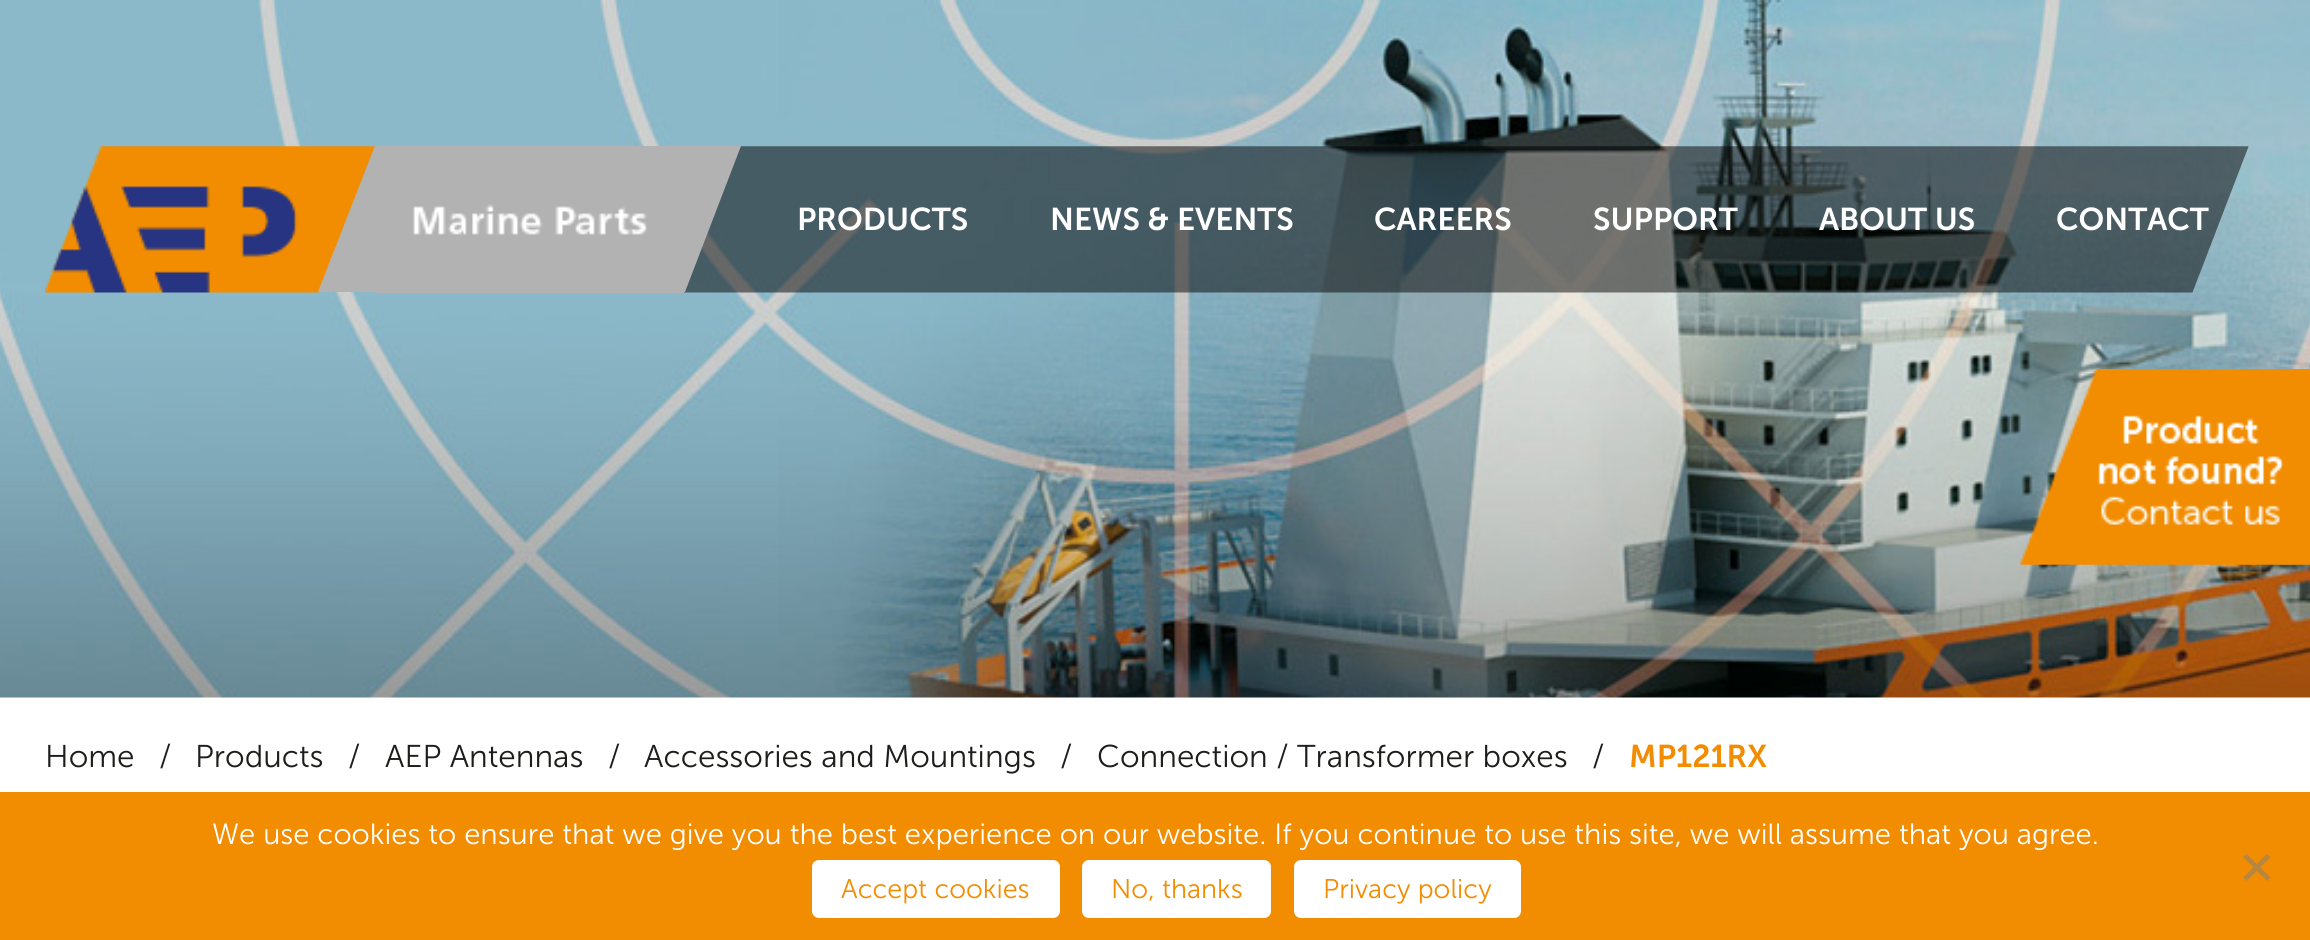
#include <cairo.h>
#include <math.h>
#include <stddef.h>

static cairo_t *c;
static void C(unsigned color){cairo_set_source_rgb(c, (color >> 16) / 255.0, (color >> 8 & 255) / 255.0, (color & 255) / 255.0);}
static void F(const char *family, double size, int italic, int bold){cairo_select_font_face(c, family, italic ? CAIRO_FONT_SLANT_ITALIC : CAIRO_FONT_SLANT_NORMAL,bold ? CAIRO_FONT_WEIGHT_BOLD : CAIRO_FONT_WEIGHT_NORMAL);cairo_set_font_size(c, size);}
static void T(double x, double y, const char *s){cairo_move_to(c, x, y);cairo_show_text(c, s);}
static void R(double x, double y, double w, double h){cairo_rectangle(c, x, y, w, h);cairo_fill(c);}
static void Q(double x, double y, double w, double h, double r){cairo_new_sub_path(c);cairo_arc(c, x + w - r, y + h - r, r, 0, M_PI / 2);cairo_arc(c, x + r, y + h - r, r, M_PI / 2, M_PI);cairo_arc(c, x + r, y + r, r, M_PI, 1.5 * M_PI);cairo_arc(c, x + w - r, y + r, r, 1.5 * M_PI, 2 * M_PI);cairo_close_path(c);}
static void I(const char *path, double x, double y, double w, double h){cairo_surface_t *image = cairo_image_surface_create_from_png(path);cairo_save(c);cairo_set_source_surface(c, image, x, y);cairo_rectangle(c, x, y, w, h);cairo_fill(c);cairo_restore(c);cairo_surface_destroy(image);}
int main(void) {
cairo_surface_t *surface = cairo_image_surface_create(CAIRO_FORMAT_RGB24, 2310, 940);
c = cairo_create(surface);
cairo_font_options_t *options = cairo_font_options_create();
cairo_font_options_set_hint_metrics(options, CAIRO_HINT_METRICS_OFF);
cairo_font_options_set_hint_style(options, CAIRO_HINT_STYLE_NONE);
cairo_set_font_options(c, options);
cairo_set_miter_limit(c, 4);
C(0xffffff);
cairo_paint(c);
I("1.png",0,0,2310,698);
I("2.png",45,146,330,147);
C(0xb3b2b2);
R(376,146,308,147);
cairo_new_path(c);
cairo_move_to(c,375,146);
cairo_line_to(c,433,146);
cairo_line_to(c,377,292);
cairo_line_to(c,318,292);
cairo_close_path(c);
cairo_fill(c);
I("4.png",684,146,1565,147);
cairo_new_path(c);
cairo_move_to(c,683,146);
cairo_line_to(c,741,146);
cairo_line_to(c,685,292);
cairo_line_to(c,627,292);
cairo_close_path(c);
cairo_fill(c);
I("3.png",413,204,234,31);
F("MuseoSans",31.5,0,1);
C(0xffffff);
T(797,230,"PRODUCTS");
T(1050,230,"NEWS & EVENTS");
T(1374,230,"CAREERS");
T(1593,230,"SUPPORT");
T(1819,230,"ABOUT US");
T(2056,230,"CONTACT");
F("MuseoSans",31.5,0,0);
C(0x1d1d1b);
T(45,767,"Home");
T(159,767,"/");
T(195,767,"Products");
T(348,767,"/");
T(385,767,"AEP Antennas");
T(608,767,"/");
T(644,767,"Accessories and Mountings");
T(1060,767,"/");
T(1097,767,"Connection / Transformer boxes");
T(1592,767,"/");
F("MuseoSans",31.5,0,1);
C(0xf28c00);
T(1629,767,"MP121RX");
R(0,792,2310,148);
F("MuseoSans",29.25,0,0);
C(0xffffff);
T(212,844,"We use cookies to ensure that we give you the best experience on our website. If you continue to use this site, we will assume that you agree.");
C(0xb98640);
cairo_new_path(c);
cairo_move_to(c,2267,854);
cairo_line_to(c,2270.5,857);
cairo_line_to(c,2246.5,881);
cairo_line_to(c,2243,877.5);
cairo_close_path(c);
cairo_fill(c);
cairo_new_path(c);
cairo_move_to(c,2243,857);
cairo_line_to(c,2246.5,854);
cairo_line_to(c,2270.5,877.5);
cairo_line_to(c,2267,881);
cairo_close_path(c);
cairo_fill(c);
C(0xffffff);
Q(813,861,246,56,6);
cairo_fill_preserve(c);
cairo_stroke(c);
F("MuseoSans",27,0,0);
C(0xf28c00);
T(841,898,"Accept cookies");
C(0xffffff);
Q(1083,861,187,56,6);
cairo_fill_preserve(c);
cairo_stroke(c);
C(0xf28c00);
T(1111,898,"No, thanks");
C(0xffffff);
Q(1295,861,225,56,6);
cairo_fill_preserve(c);
cairo_stroke(c);
C(0xf28c00);
T(1323,898,"Privacy policy");
I("5.png",2020,369,290,196);
cairo_surface_write_to_png(surface, "o.png");
cairo_font_options_destroy(options);
cairo_destroy(c);
cairo_surface_destroy(surface);
return 0;
}
